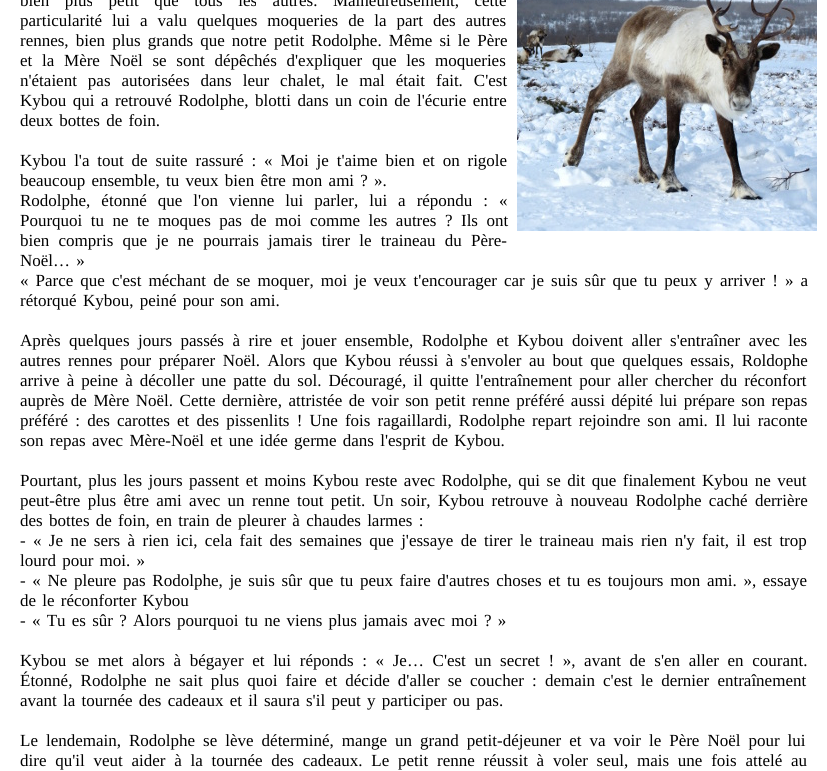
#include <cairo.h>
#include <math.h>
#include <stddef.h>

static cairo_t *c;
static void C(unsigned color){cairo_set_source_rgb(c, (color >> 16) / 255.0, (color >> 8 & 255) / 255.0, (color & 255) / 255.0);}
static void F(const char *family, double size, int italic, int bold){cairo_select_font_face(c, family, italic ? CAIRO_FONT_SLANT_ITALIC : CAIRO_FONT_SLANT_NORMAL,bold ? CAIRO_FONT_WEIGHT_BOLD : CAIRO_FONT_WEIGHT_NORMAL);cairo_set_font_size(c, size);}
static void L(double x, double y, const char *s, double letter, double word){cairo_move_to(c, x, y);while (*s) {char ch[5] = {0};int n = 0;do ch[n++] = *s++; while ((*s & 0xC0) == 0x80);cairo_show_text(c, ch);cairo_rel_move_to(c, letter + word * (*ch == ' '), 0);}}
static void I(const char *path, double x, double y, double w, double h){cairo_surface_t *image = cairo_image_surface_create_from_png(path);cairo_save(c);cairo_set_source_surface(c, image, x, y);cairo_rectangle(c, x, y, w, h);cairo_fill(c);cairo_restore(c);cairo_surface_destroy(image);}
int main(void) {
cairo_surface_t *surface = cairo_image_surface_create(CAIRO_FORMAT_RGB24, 827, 771);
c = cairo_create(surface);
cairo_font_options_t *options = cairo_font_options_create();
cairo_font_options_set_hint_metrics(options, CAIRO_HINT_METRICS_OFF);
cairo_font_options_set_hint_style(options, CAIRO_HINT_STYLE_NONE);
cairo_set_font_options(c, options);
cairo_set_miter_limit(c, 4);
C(0xffffff);
cairo_paint(c);
F("Liberation Serif",17,0,0);
C(0x000000);
L(20,6,"bien plus petit que tous les autres. Malheureusement, cette",0,11.25);
L(20,26,"particularité lui a valu quelques moqueries de la part des autres",0,5.75);
L(20,46,"rennes, bien plus grands que notre petit Rodolphe. Même si le Père",0,2.9);
L(20,66,"et la Mère Noël se sont dépêchés d'expliquer que les moqueries",0,5.5);
L(20,86,"n'étaient pas autorisées dans leur chalet, le mal était fait. C'est",0,6.75);
L(20,106,"Kybou qui a retrouvé Rodolphe, blotti dans un coin de l'écurie entre",0,2.25);
L(20,126,"deux bottes de foin.",0,2);
L(20,166,"Kybou l'a tout de suite rassuré : « Moi je t'aime bien et on rigole",0,3.6);
L(20,186,"beaucoup ensemble, tu veux bien être mon ami ? ».",0,2);
L(20,206,"Rodolphe, étonné que l'on vienne lui parler, lui a répondu : «",0,6.75);
L(20,226,"Pourquoi tu ne te moques pas de moi comme les autres ? Ils ont",0,4.25);
L(20,246,"bien compris que je ne pourrais jamais tirer le traineau du Père-",0,5);
L(20,266,"Noël… »",0,2);
L(20,286,"« Parce que c'est méchant de se moquer, moi je veux t'encourager car je suis sûr que tu peux y arriver ! » a",0,2.8);
L(20,306,"rétorqué Kybou, peiné pour son ami.",0,2);
L(20,346,"Après quelques jours passés à rire et jouer ensemble, Rodolphe et Kybou doivent aller s'entraîner avec les",0,4.25);
L(20,366,"autres rennes pour préparer Noël. Alors que Kybou réussi à s'envoler au bout que quelques essais, Roldophe",0,3.25);
L(20,386,"arrive à peine à décoller une patte du sol. Découragé, il quitte l'entraînement pour aller chercher du réconfort",0,2.8);
L(20,406,"auprès de Mère Noël. Cette dernière, attristée de voir son petit renne préféré aussi dépité lui prépare son repas",0,2.25);
L(20,426,"préféré : des carottes et des pissenlits ! Une fois ragaillardi, Rodolphe repart rejoindre son ami. Il lui raconte",0,2.9);
L(20,446,"son repas avec Mère-Noël et une idée germe dans l'esprit de Kybou.",0,2);
L(20,486,"Pourtant, plus les jours passent et moins Kybou reste avec Rodolphe, qui se dit que finalement Kybou ne veut",0,2.25);
L(20,506,"peut-être plus être ami avec un renne tout petit. Un soir, Kybou retrouve à nouveau Rodolphe caché derrière",0,3.1);
L(20,526,"des bottes de foin, en train de pleurer à chaudes larmes :",0,2);
L(20,546,"- « Je ne sers à rien ici, cela fait des semaines que j'essaye de tirer le traineau mais rien n'y fait, il est trop",0,3.1);
L(20,566,"lourd pour moi. »",0,2);
L(20,586,"- « Ne pleure pas Rodolphe, je suis sûr que tu peux faire d'autres choses et tu es toujours mon ami. », essaye",0,2.4);
L(20,606,"de le réconforter Kybou",0,2);
L(20,626,"- « Tu es sûr ? Alors pourquoi tu ne viens plus jamais avec moi ? »",0,2);
L(20,666,"Kybou se met alors à bégayer et lui réponds : « Je… C'est un secret ! », avant de s'en aller en courant.",0,4.4);
L(20,686,"Étonné, Rodolphe ne sait plus quoi faire et décide d'aller se coucher : demain c'est le dernier entraînement",0,3.9);
L(20,706,"avant la tournée des cadeaux et il saura s'il peut y participer ou pas.",0,2);
L(20,746,"Le lendemain, Rodolphe se lève déterminé, mange un grand petit-déjeuner et va voir le Père Noël pour lui",0,3.75);
L(20,766,"dire qu'il veut aider à la tournée des cadeaux. Le petit renne réussit à voler seul, mais une fois attelé au",0,4.5);
I("1.png",517,0,300,231);
cairo_surface_write_to_png(surface, "o.png");
cairo_font_options_destroy(options);
cairo_destroy(c);
cairo_surface_destroy(surface);
return 0;
}
